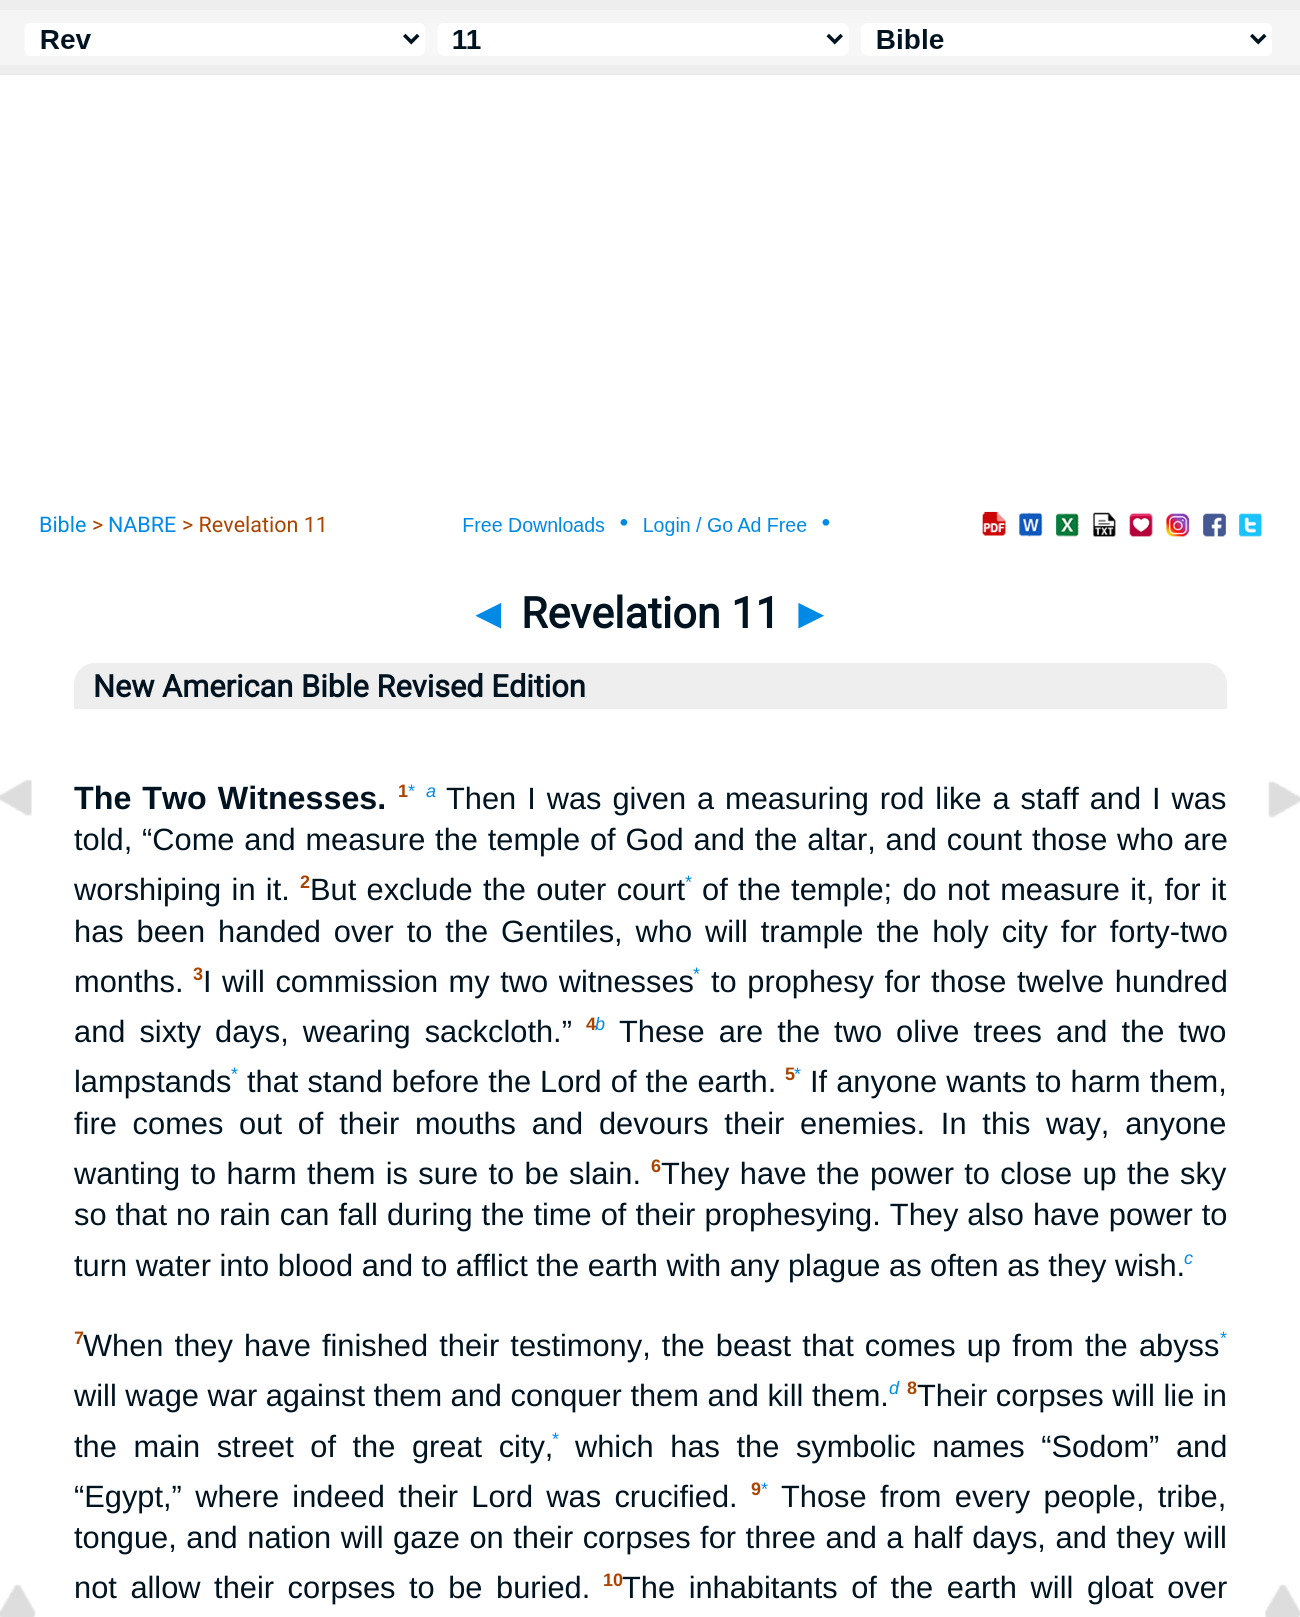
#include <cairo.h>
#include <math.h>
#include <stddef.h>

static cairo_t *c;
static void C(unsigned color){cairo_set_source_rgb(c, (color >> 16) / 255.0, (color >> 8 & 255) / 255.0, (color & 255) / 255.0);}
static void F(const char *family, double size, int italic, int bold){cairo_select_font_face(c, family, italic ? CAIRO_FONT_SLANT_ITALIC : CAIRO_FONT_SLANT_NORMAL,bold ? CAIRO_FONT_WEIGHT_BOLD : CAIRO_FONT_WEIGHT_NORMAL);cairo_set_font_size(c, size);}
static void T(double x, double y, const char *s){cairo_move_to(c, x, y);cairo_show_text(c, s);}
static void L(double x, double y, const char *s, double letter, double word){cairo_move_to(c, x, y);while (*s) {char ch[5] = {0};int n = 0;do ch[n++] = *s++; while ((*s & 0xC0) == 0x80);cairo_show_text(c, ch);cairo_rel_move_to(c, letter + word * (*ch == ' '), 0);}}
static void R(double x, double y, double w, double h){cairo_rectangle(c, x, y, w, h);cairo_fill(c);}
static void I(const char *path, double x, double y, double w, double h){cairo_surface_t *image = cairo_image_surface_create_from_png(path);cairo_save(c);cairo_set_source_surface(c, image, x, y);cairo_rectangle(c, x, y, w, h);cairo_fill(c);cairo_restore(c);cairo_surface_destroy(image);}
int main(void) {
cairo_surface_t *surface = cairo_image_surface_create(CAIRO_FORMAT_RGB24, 1300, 1617);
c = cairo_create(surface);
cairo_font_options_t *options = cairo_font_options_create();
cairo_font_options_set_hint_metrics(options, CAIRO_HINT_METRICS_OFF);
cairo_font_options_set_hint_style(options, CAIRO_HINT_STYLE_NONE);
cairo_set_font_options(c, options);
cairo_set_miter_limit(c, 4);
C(0xffffff);
cairo_paint(c);
C(0xe8e8e8);
R(0,74,1300,1);
C(0xeeeeee);
R(0,0,1300,74);
C(0xf5f5f5);
R(0,10,1300,55);
I("1.png",24,23,1248,33);
F("Roboto",21.5,0,0);
C(0x008ae6);
T(39,532,"Bible");
C(0xaa4400);
T(92,532,">");
C(0x008ae6);
T(108,532,"NABRE");
C(0xaa4400);
T(182,532,"> Revelation 11");
I("2.png",463,517,367,19);
I("3.png",982,511,280,26);
F("Liberation Sans",43,0,1);
C(0x008ae6);
T(467,628,"◄");
F("Roboto",43,0,1);
C(0x001320);
T(521,628,"Revelation 11");
F("Liberation Sans",43,0,1);
C(0x008ae6);
T(790,628,"►");
I("4.png",0,779,32,37);
C(0xeeeeee);
cairo_new_path(c);
cairo_move_to(c,95,663);
cairo_line_to(c,1206,663);
cairo_curve_to(c,1217.5,663,1227,672.5,1227,684);
cairo_line_to(c,1227,709);
cairo_line_to(c,74,709);
cairo_line_to(c,74,684);
cairo_curve_to(c,74,672.5,83.5,663,95,663);
cairo_close_path(c);
cairo_fill(c);
F("Roboto",30.8,0,1);
C(0x001320);
T(93,697,"New American Bible Revised Edition");
F("Liberation Sans",32.25,0,1);
L(74,809,"The Two Witnesses.",0,2);
F("Liberation Sans",18,0,1);
C(0xaa4400);
T(398,797,"1");
F("Liberation Sans",18,0,0);
C(0x008ae6);
T(408,797,"*");
F("Liberation Sans",18,1,0);
T(426,797,"a");
F("Liberation Sans",30.8,0,0);
C(0x001320);
L(446,809,"Then I was given a measuring rod like a staff and I was",0,2.4);
L(74,850,"told, “Come and measure the temple of God and the altar, and count those who are",0,1.25);
L(74,900,"worshiping in it.",0,1.75);
F("Liberation Sans",18,0,1);
C(0xaa4400);
T(300,888,"2");
F("Liberation Sans",30.8,0,0);
C(0x001320);
L(310,900,"But exclude the outer court",0,1.75);
F("Liberation Sans",18,0,0);
C(0x008ae6);
T(685,888,"*");
F("Liberation Sans",30.8,0,0);
C(0x001320);
L(702,900,"of the temple; do not measure it, for it",0,1.75);
L(74,942,"has been handed over to the Gentiles, who will trample the holy city for forty-two",0,4.4);
T(74,992,"months.");
F("Liberation Sans",18,0,1);
C(0xaa4400);
T(193,980,"3");
F("Liberation Sans",30.8,0,0);
C(0x001320);
L(203,992,"I will commission my two witnesses",0,2);
F("Liberation Sans",18,0,0);
C(0x008ae6);
T(693,980,"*");
F("Liberation Sans",30.8,0,0);
C(0x001320);
L(711,992,"to prophesy for those twelve hundred",0,2);
L(74,1042,"and sixty days, wearing sackcloth.”",0,5.5);
F("Liberation Sans",18,0,1);
C(0xaa4400);
T(586,1030,"4");
F("Liberation Sans",18,1,0);
C(0x008ae6);
T(595,1030,"b");
F("Liberation Sans",30.8,0,0);
C(0x001320);
L(619,1042,"These are the two olive trees and the two",0,5.5);
T(74,1092,"lampstands");
F("Liberation Sans",18,0,0);
C(0x008ae6);
T(231,1080,"*");
F("Liberation Sans",30.8,0,0);
C(0x001320);
L(247,1092,"that stand before the Lord of the earth.",0,.5);
F("Liberation Sans",18,0,1);
C(0xaa4400);
T(785,1080,"5");
F("Liberation Sans",18,0,0);
C(0x008ae6);
T(794,1080,"*");
F("Liberation Sans",30.8,0,0);
C(0x001320);
L(810,1092,"If anyone wants to harm them,",0,.5);
L(74,1134,"fire comes out of their mouths and devours their enemies. In this way, anyone",0,7.25);
L(74,1184,"wanting to harm them is sure to be slain.",0,1.75);
F("Liberation Sans",18,0,1);
C(0xaa4400);
T(651,1172,"6");
F("Liberation Sans",30.8,0,0);
C(0x001320);
L(661,1184,"They have the power to close up the sky",0,1.75);
L(74,1225,"so that no rain can fall during the time of their prophesying. They also have power to",0,.5);
T(74,1276,"turn water into blood and to afflict the earth with any plague as often as they wish.");
F("Liberation Sans",18,1,0);
C(0x008ae6);
T(1184,1264,"c");
F("Liberation Sans",18,0,1);
C(0xaa4400);
T(74,1344,"7");
F("Liberation Sans",30.8,0,0);
C(0x001320);
L(83,1356,"When they have finished their testimony, the beast that comes up from the abyss",0,2.6);
F("Liberation Sans",18,0,0);
C(0x008ae6);
T(1220,1344,"*");
F("Liberation Sans",30.8,0,0);
C(0x001320);
T(74,1406,"will wage war against them and conquer them and kill them.");
F("Liberation Sans",18,1,0);
C(0x008ae6);
T(889,1394,"d");
F("Liberation Sans",18,0,1);
C(0xaa4400);
T(907,1394,"8");
F("Liberation Sans",30.8,0,0);
C(0x001320);
T(917,1406,"Their corpses will lie in");
L(74,1457,"the main street of the great city,",0,8);
F("Liberation Sans",18,0,0);
C(0x008ae6);
T(552,1445,"*");
F("Liberation Sans",30.8,0,0);
C(0x001320);
L(575,1457,"which has the symbolic names “Sodom” and",0,8);
L(74,1507,"“Egypt,” where indeed their Lord was crucified.",0,4.75);
F("Liberation Sans",18,0,1);
C(0xaa4400);
T(751,1495,"9");
F("Liberation Sans",18,0,0);
C(0x008ae6);
T(761,1495,"*");
F("Liberation Sans",30.8,0,0);
C(0x001320);
L(781,1507,"Those from every people, tribe,",0,4.75);
L(74,1548,"tongue, and nation will gaze on their corpses for three and a half days, and they will",0,1);
L(74,1598,"not allow their corpses to be buried.",0,5);
F("Liberation Sans",18,0,1);
C(0xaa4400);
T(603,1586,"10");
F("Liberation Sans",30.8,0,0);
C(0x001320);
L(622,1598,"The inhabitants of the earth will gloat over",0,5);
I("5.png",1268,781,32,37);
I("6.png",0,1584,36,33);
I("7.png",1265,1584,35,33);
cairo_surface_write_to_png(surface, "o.png");
cairo_font_options_destroy(options);
cairo_destroy(c);
cairo_surface_destroy(surface);
return 0;
}
